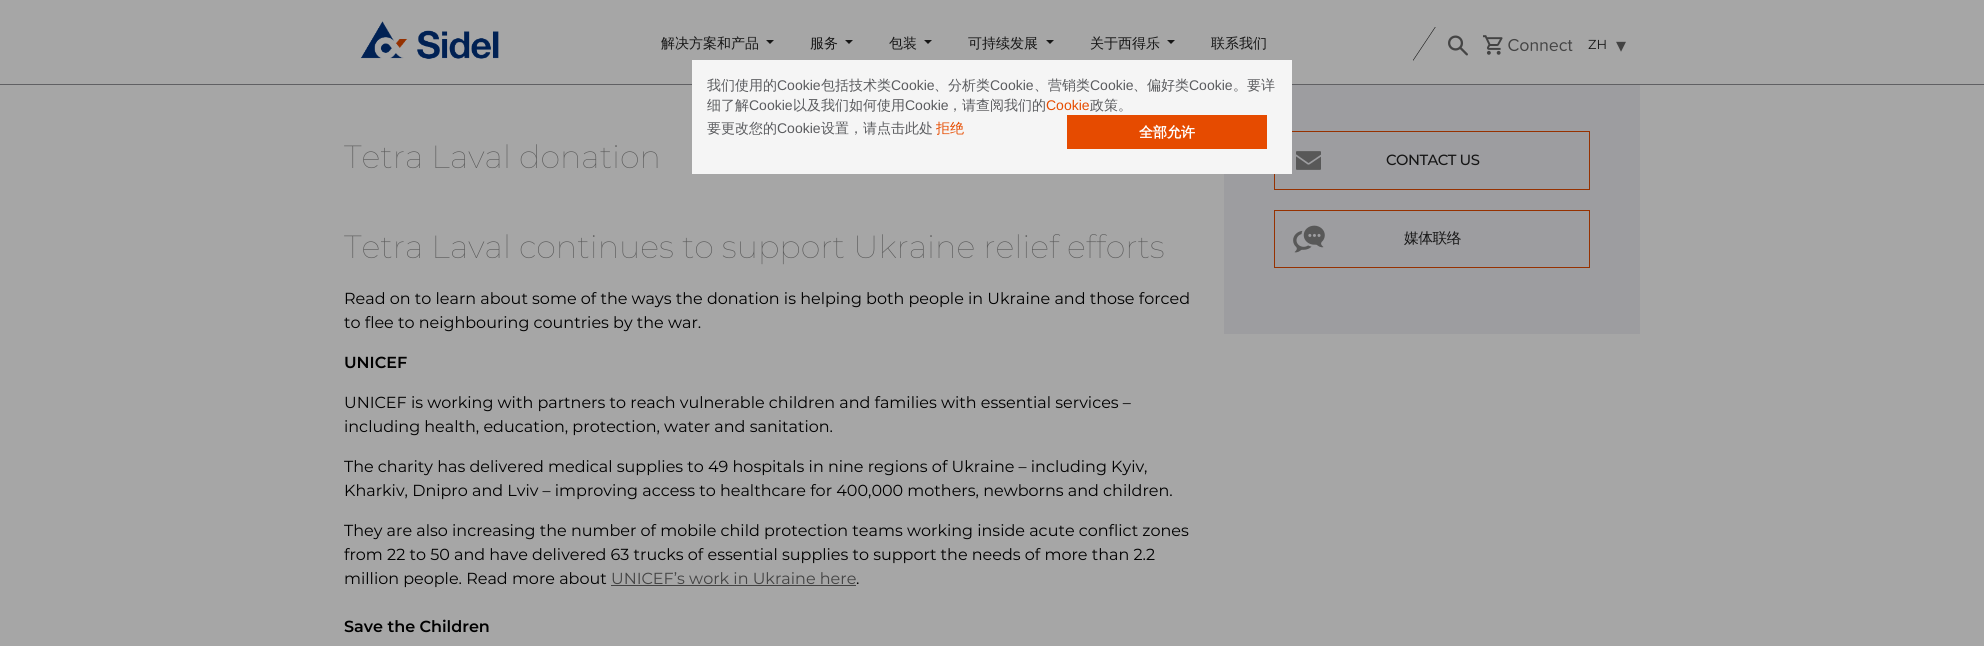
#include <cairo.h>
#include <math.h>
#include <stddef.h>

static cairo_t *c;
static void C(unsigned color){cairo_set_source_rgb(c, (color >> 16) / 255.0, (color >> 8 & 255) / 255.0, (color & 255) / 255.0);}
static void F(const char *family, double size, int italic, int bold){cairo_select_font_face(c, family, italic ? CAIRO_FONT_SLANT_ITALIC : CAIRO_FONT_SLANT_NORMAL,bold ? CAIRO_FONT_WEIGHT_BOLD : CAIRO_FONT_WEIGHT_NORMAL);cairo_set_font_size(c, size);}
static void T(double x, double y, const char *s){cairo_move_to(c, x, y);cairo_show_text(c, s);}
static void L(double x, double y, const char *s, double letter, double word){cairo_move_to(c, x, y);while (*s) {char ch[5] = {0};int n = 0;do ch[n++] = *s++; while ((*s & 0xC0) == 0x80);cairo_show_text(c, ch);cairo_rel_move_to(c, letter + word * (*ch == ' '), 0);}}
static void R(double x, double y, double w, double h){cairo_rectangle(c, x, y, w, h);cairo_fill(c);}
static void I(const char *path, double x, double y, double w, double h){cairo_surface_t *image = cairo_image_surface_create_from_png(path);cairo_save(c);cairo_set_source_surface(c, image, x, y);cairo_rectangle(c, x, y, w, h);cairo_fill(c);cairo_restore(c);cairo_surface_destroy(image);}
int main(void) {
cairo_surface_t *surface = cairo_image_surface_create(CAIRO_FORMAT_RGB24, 1984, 646);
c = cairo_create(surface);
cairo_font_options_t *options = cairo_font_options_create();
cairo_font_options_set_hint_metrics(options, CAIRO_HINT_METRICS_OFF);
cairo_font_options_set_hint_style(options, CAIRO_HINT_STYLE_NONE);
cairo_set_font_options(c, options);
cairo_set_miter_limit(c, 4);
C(0xa6a6a6);
cairo_paint(c);
I("1.png",360,21,139,38);
F("WenQuanYi Zen Hei Medium",14,0,0);
C(0x161616);
T(661,48,"解决方案和产品");
cairo_new_path(c);
cairo_move_to(c,766,40);
cairo_line_to(c,774,40);
cairo_line_to(c,770,44);
cairo_close_path(c);
cairo_fill(c);
T(810,48,"服务");
cairo_new_path(c);
cairo_move_to(c,845,40);
cairo_line_to(c,853,40);
cairo_line_to(c,849,44);
cairo_close_path(c);
cairo_fill(c);
T(889,48,"包装");
cairo_new_path(c);
cairo_move_to(c,924,40);
cairo_line_to(c,932,40);
cairo_line_to(c,928,44);
cairo_close_path(c);
cairo_fill(c);
T(968,48,"可持续发展");
cairo_new_path(c);
cairo_move_to(c,1046,40);
cairo_line_to(c,1054,40);
cairo_line_to(c,1050,44);
cairo_close_path(c);
cairo_fill(c);
T(1090,48,"关于西得乐");
cairo_new_path(c);
cairo_move_to(c,1167,40);
cairo_line_to(c,1175,40);
cairo_line_to(c,1171,44);
cairo_close_path(c);
cairo_fill(c);
T(1211,48,"联系我们");
cairo_save(c);
cairo_rectangle(c,1413,27,25,42);
cairo_clip(c);
cairo_new_path(c);
cairo_move_to(c,1413,60.5);
cairo_line_to(c,1438,23);
C(0x000000);
cairo_set_line_width(c,.5);
cairo_stroke(c);
cairo_restore(c);
I("2.png",1448,35,20,21);
I("3.png",1483,35,90,20);
F("Montserrat",13,0,0);
T(1588,49,"ZH");
F("DejaVu Sans",20,0,0);
C(0x434343);
T(1616,52,"▾");
C(0x606063);
R(0,84,1984,1);
C(0x9d9da0);
R(1224,85,416,249);
cairo_rectangle(c,1274.5,131.5,315,58);
C(0x963100);
cairo_set_line_width(c,1);
cairo_stroke(c);
C(0xf5f5f5);
R(692,60,600,114);
F("WenQuanYi Zen Hei Medium",14,0,0);
C(0x5a5b5e);
T(707,90,"我们使用的");
F("Liberation Sans",14,0,0);
T(777,90,"Cookie");
F("WenQuanYi Zen Hei Medium",14,0,0);
T(821,90,"包括技术类");
F("Liberation Sans",14,0,0);
T(891,90,"Cookie");
F("WenQuanYi Zen Hei Medium",14,0,0);
T(934,90,"、分析类");
F("Liberation Sans",14,0,0);
T(990,90,"Cookie");
F("WenQuanYi Zen Hei Medium",14,0,0);
T(1034,90,"、营销类");
F("Liberation Sans",14,0,0);
T(1090,90,"Cookie");
F("WenQuanYi Zen Hei Medium",14,0,0);
T(1133,90,"、偏好类");
F("Liberation Sans",14,0,0);
T(1189,90,"Cookie");
F("WenQuanYi Zen Hei Medium",14,0,0);
T(1233,90,"。要详");
T(707,110,"细了解");
F("Liberation Sans",14,0,0);
T(749,110,"Cookie");
F("WenQuanYi Zen Hei Medium",14,0,0);
T(793,110,"以及我们如何使用");
F("Liberation Sans",14,0,0);
T(905,110,"Cookie");
F("WenQuanYi Zen Hei Medium",14,0,0);
T(948,110,"，请查阅我们的");
F("Liberation Sans",14,0,0);
C(0xe64c00);
T(1046,110,"Cookie");
F("WenQuanYi Zen Hei Medium",14,0,0);
C(0x5a5b5e);
T(1090,110,"政策。");
T(707,133,"要更改您的");
F("Liberation Sans",14,0,0);
T(777,133,"Cookie");
F("WenQuanYi Zen Hei Medium",14,0,0);
T(821,133,"设置，请点击此处");
C(0xe64c00);
T(936,133,"拒绝");
C(0xe64b00);
R(1067,115,200,34);
F("WenQuanYi Zen Hei",14,0,1);
C(0xffffff);
T(1139,137,"全部允许");
F("Montserrat Thin",32,0,0);
C(0x585858);
T(344,168,"Tetra Laval donation");
T(344,258,"Tetra Laval continues to support Ukraine relief efforts");
F("Montserrat",16,0,0);
C(0x000000);
T(344,304,"Read on to learn about some of the ways the donation is helping both people in Ukraine and those forced");
T(344,328,"to flee to neighbouring countries by the war.");
F("Montserrat SemiBold",16,0,0);
T(344,368,"UNICEF");
F("Montserrat",16,0,0);
T(344,408,"UNICEF is working with partners to reach vulnerable children and families with essential services –");
T(344,432,"including health, education, protection, water and sanitation.");
T(344,472,"The charity has delivered medical supplies to 49 hospitals in nine regions of Ukraine – including Kyiv,");
T(344,496,"Kharkiv, Dnipro and Lviv – improving access to healthcare for 400,000 mothers, newborns and children.");
T(344,536,"They are also increasing the number of mobile child protection teams working inside acute conflict zones");
T(344,560,"from 22 to 50 and have delivered 63 trucks of essential supplies to support the needs of more than 2.2");
T(344,584,"million people. Read more about");
C(0x434343);
T(611,584,"UNICEF’s work in Ukraine here");
R(611,585,245,1);
C(0x000000);
T(856,584,".");
F("Montserrat SemiBold",16,0,0);
T(344,632,"Save the Children");
I("4.png",1296,151,25,19);
F("Montserrat Medium",14.75,0,0);
C(0x161616);
L(1386,165,"CONTACT US",-.5,0);
cairo_rectangle(c,1274.5,210.5,315,57);
C(0x963100);
cairo_stroke(c);
I("5.png",1293,225,32,28);
F("WenQuanYi Zen Hei Medium",14.75,0,0);
C(0x161616);
L(1404,243,"媒体联络",-.5,0);
cairo_surface_write_to_png(surface, "o.png");
cairo_font_options_destroy(options);
cairo_destroy(c);
cairo_surface_destroy(surface);
return 0;
}
